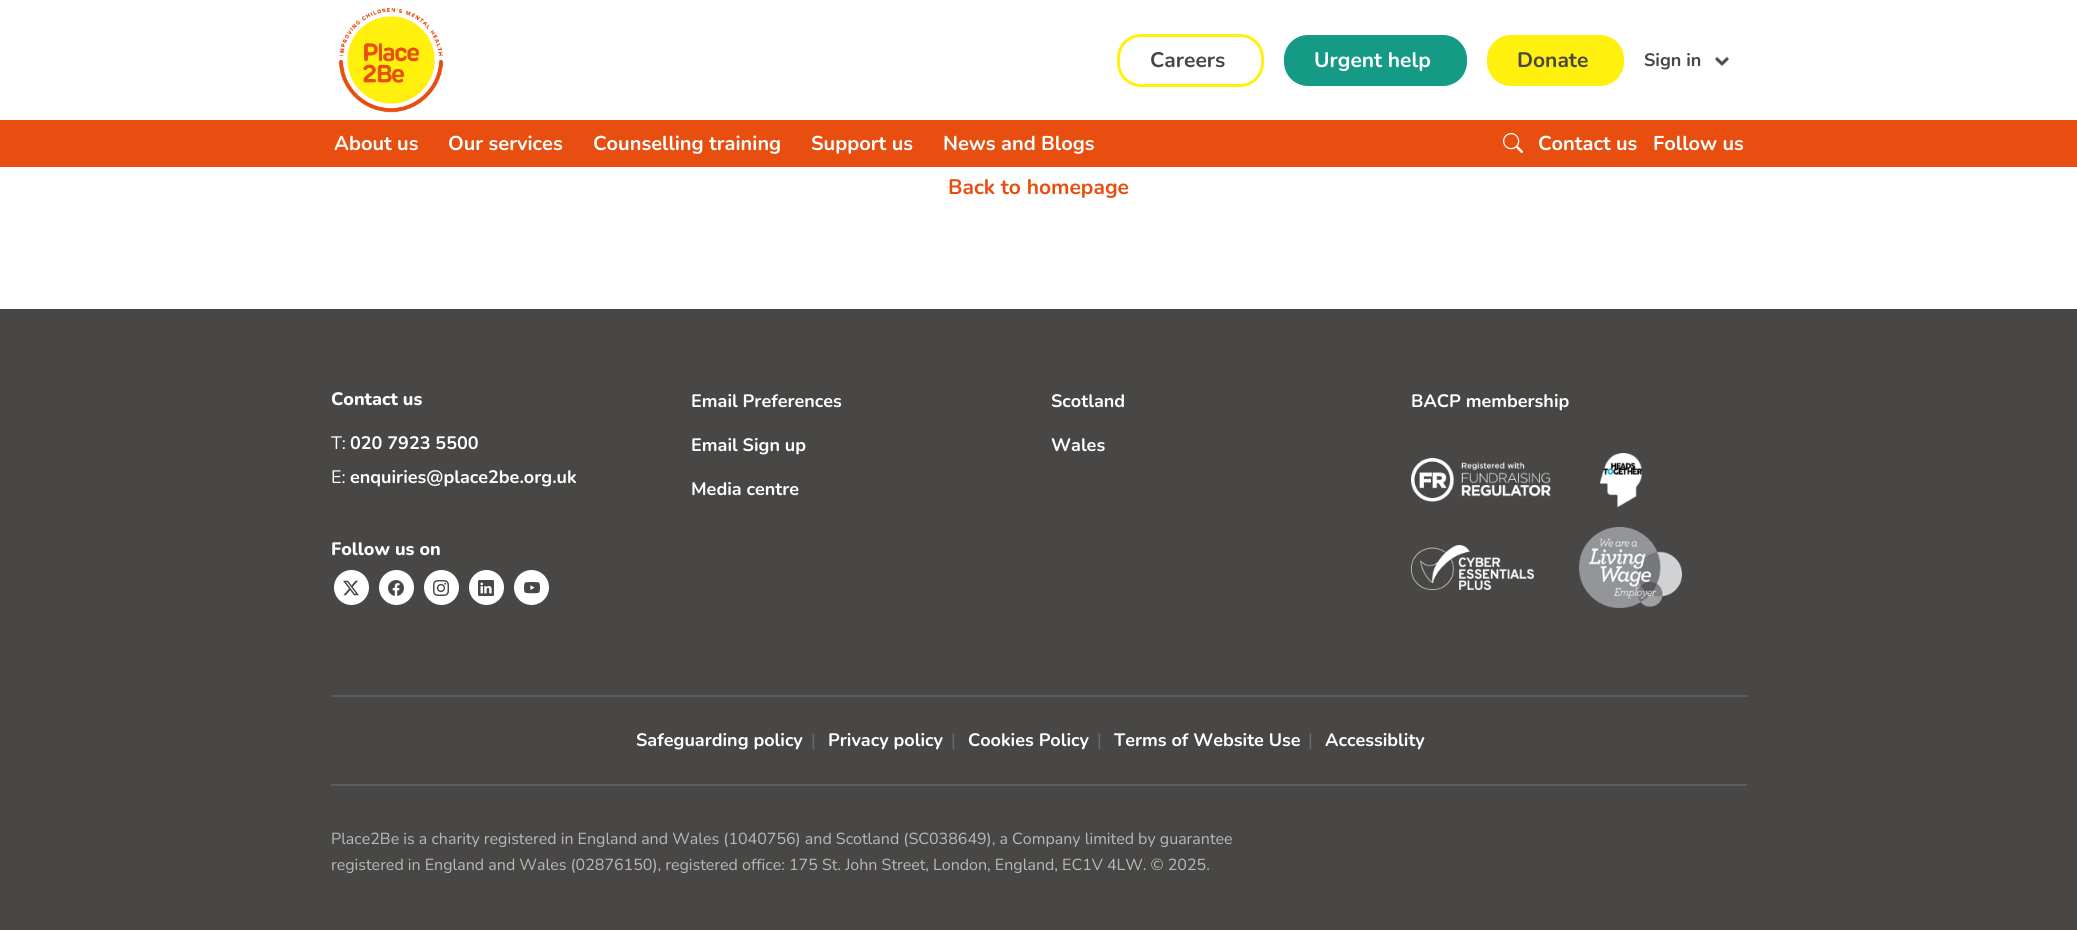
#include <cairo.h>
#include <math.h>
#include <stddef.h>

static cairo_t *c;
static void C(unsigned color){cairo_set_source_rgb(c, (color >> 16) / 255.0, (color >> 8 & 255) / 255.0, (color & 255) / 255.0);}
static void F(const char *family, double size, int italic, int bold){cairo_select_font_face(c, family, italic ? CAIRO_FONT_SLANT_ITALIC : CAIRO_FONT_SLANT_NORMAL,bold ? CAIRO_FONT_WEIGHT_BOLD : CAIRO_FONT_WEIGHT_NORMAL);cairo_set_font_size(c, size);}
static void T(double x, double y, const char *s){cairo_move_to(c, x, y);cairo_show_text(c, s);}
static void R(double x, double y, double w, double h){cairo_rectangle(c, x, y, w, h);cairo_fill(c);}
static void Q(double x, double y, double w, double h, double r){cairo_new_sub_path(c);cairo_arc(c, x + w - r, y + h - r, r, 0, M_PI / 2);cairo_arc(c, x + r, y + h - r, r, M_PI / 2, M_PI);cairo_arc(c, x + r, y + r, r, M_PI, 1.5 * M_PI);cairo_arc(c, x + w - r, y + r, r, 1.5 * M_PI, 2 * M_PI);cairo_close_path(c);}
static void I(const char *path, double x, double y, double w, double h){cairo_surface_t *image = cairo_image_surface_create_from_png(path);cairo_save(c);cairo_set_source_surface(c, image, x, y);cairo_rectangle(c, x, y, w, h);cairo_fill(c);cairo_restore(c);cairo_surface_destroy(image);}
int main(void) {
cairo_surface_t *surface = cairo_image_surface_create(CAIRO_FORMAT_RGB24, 2077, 930);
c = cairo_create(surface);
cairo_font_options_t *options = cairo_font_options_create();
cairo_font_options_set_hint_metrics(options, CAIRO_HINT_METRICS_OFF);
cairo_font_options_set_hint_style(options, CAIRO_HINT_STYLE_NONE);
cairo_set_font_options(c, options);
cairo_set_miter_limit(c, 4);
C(0xffffff);
cairo_paint(c);
I("1.png",338,7,106,106);
Q(1118.5,35.5,144,50,22.5);
C(0xfff00d);
cairo_set_line_width(c,3);
cairo_stroke(c);
F("Nunito",21,0,1);
C(0x484746);
T(1150,67,"Careers");
C(0x159b85);
Q(1284,35,183,51,24);
cairo_fill(c);
C(0xffffff);
T(1314,67,"Urgent help");
C(0xfff00d);
Q(1487,35,137,51,24);
cairo_fill(c);
C(0x484746);
T(1517,67,"Donate");
F("Nunito",18,0,1);
T(1644,66,"Sign in");
I("2.png",1715,56,14,11);
C(0xe84e0f);
R(0,120,2077,47);
F("Nunito",20,0,1);
C(0xffffff);
T(334,150,"About us");
T(448,150,"Our services");
T(593,150,"Counselling training");
T(811,150,"Support us");
T(943,150,"News and Blogs");
I("3.png",1503,133,20,20);
T(1538,150,"Contact us");
T(1653,150,"Follow us");
F("Nunito",21,0,1);
C(0xe84e0f);
T(948,194,"Back to homepage");
C(0x484746);
R(0,309,2077,621);
F("Nunito ExtraBold",18,0,0);
C(0xffffff);
T(331,405,"Contact us");
F("Nunito",18,0,0);
T(331,449,"T:");
F("Nunito",18,0,1);
T(350,449,"020 7923 5500");
F("Nunito",18,0,0);
T(331,483,"E:");
F("Nunito",18,0,1);
T(350,483,"enquiries@place2be.org.uk");
F("Nunito ExtraBold",18,0,0);
T(331,555,"Follow us on");
cairo_new_path(c);
cairo_arc(c,351.5,587.5,17.5,0,2 * M_PI);
cairo_fill(c);
I("4.png",343,580,16,16);
cairo_arc(c,396.5,587.5,17.5,0,2 * M_PI);
cairo_fill(c);
I("5.png",388,580,16,16);
cairo_arc(c,441.5,587.5,17.5,0,2 * M_PI);
cairo_fill(c);
I("6.png",433,580,16,16);
cairo_arc(c,486.5,587.5,17.5,0,2 * M_PI);
cairo_fill(c);
I("7.png",478,580,16,16);
cairo_arc(c,531.5,587.5,17.5,0,2 * M_PI);
cairo_fill(c);
I("8.png",524,582,16,12);
F("Nunito",18,0,1);
T(691,407,"Email Preferences");
T(691,451,"Email Sign up");
T(691,495,"Media centre");
T(1051,407,"Scotland");
T(1051,451,"Wales");
T(1411,407,"BACP membership");
I("9.png",1411,458,140,44);
I("10.png",1600,453,42,54);
I("11.png",1411,545,123,45);
I("12.png",1579,527,103,81);
C(0x5d5d5d);
R(331,695,1416,2);
R(331,784,1416,2);
C(0xffffff);
T(636,746,"Safeguarding policy");
F("Nunito",18,0,0);
C(0x6a6a6a);
T(811,746,"|");
F("Nunito",18,0,1);
C(0xffffff);
T(828,746,"Privacy policy");
F("Nunito",18,0,0);
C(0x6a6a6a);
T(951,746,"|");
F("Nunito",18,0,1);
C(0xffffff);
T(968,746,"Cookies Policy");
F("Nunito",18,0,0);
C(0x6a6a6a);
T(1097,746,"|");
F("Nunito",18,0,1);
C(0xffffff);
T(1114,746,"Terms of Website Use");
F("Nunito",18,0,0);
C(0x6a6a6a);
T(1308,746,"|");
F("Nunito",18,0,1);
C(0xffffff);
T(1325,746,"Accessiblity");
F("Nunito",16,0,0);
C(0xb9b9b9);
T(331,844,"Place2Be is a charity registered in England and Wales (1040756) and Scotland (SC038649), a Company limited by guarantee");
T(331,870,"registered in England and Wales (02876150), registered office: 175 St. John Street, London, England, EC1V 4LW. © 2025.");
cairo_surface_write_to_png(surface, "o.png");
cairo_font_options_destroy(options);
cairo_destroy(c);
cairo_surface_destroy(surface);
return 0;
}
